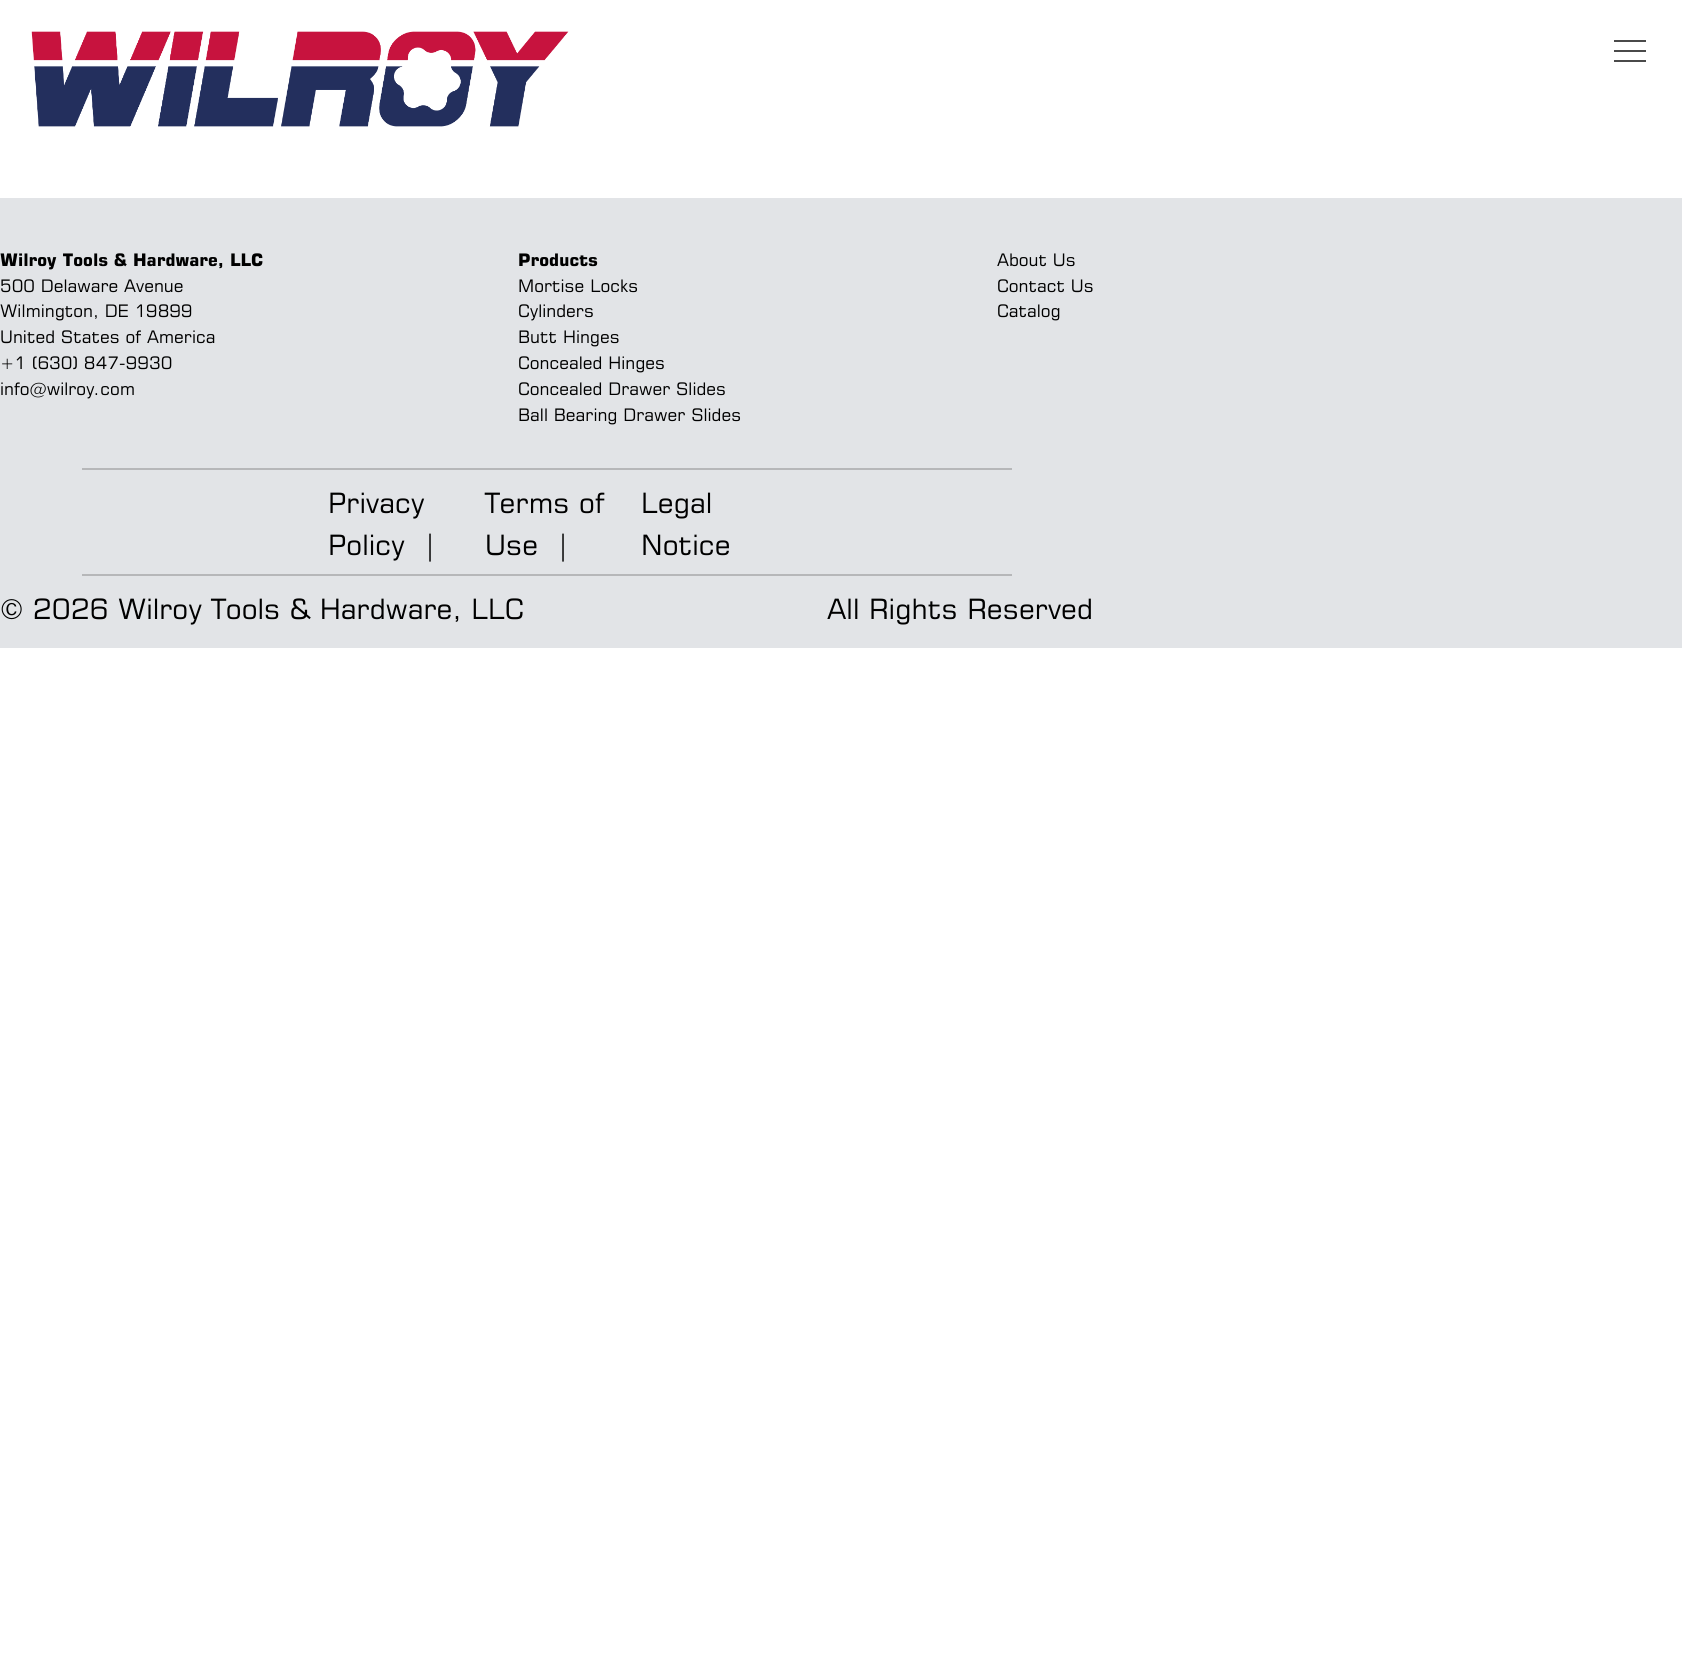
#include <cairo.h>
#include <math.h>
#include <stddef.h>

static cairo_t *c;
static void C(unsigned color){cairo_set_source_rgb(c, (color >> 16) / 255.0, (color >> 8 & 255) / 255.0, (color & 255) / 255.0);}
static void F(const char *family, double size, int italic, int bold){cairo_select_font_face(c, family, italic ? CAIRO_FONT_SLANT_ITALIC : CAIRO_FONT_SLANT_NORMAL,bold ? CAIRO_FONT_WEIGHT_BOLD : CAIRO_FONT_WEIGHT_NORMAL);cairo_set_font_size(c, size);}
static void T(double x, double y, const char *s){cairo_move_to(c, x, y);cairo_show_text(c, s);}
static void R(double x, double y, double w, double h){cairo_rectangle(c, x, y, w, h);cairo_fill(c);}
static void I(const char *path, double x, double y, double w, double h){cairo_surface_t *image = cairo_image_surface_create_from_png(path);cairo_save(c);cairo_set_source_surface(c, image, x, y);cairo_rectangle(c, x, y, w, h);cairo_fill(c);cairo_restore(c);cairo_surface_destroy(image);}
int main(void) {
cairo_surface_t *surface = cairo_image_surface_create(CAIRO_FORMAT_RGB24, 1682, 1666);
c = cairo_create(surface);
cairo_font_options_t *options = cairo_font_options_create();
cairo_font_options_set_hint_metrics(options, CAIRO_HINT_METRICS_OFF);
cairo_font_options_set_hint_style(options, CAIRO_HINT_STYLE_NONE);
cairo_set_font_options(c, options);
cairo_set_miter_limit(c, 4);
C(0xffffff);
cairo_paint(c);
I("1.png",31,31,538,96);
C(0x4a4a4a);
R(1614,40,32,2);
R(1614,50,32,2);
R(1614,60,32,2);
C(0xe2e4e7);
R(0,198,1682,450);
F("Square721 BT",17.25,0,1);
C(0x000000);
T(0,266,"Wilroy Tools & Hardware, LLC");
F("Square721 BT",17.25,0,0);
T(0,292,"500 Delaware Avenue");
T(0,317,"Wilmington, DE 19899");
T(0,343,"United States of America");
T(0,369,"+1 (630) 847-9930");
T(0,395,"info@wilroy.com");
F("Square721 BT",17.25,0,1);
T(518,266,"Products");
F("Square721 BT",17.25,0,0);
T(518,292,"Mortise Locks");
T(518,317,"Cylinders");
T(518,343,"Butt Hinges");
T(518,369,"Concealed Hinges");
T(518,395,"Concealed Drawer Slides");
T(518,421,"Ball Bearing Drawer Slides");
T(997,266,"About Us");
T(997,292,"Contact Us");
T(997,317,"Catalog");
C(0xb6b7b9);
R(82,468,930,2);
F("Square721 BT",28,0,0);
C(0x000000);
T(328,513,"Privacy");
T(328,555,"Policy");
T(423,555,"|");
T(485,513,"Terms of");
T(485,555,"Use");
T(556,555,"|");
T(641,513,"Legal");
T(641,555,"Notice");
C(0xb6b7b9);
R(82,574,930,2);
C(0x000000);
T(0,619,"© 2026 Wilroy Tools & Hardware, LLC");
T(827,619,"All Rights Reserved");
cairo_surface_write_to_png(surface, "o.png");
cairo_font_options_destroy(options);
cairo_destroy(c);
cairo_surface_destroy(surface);
return 0;
}
